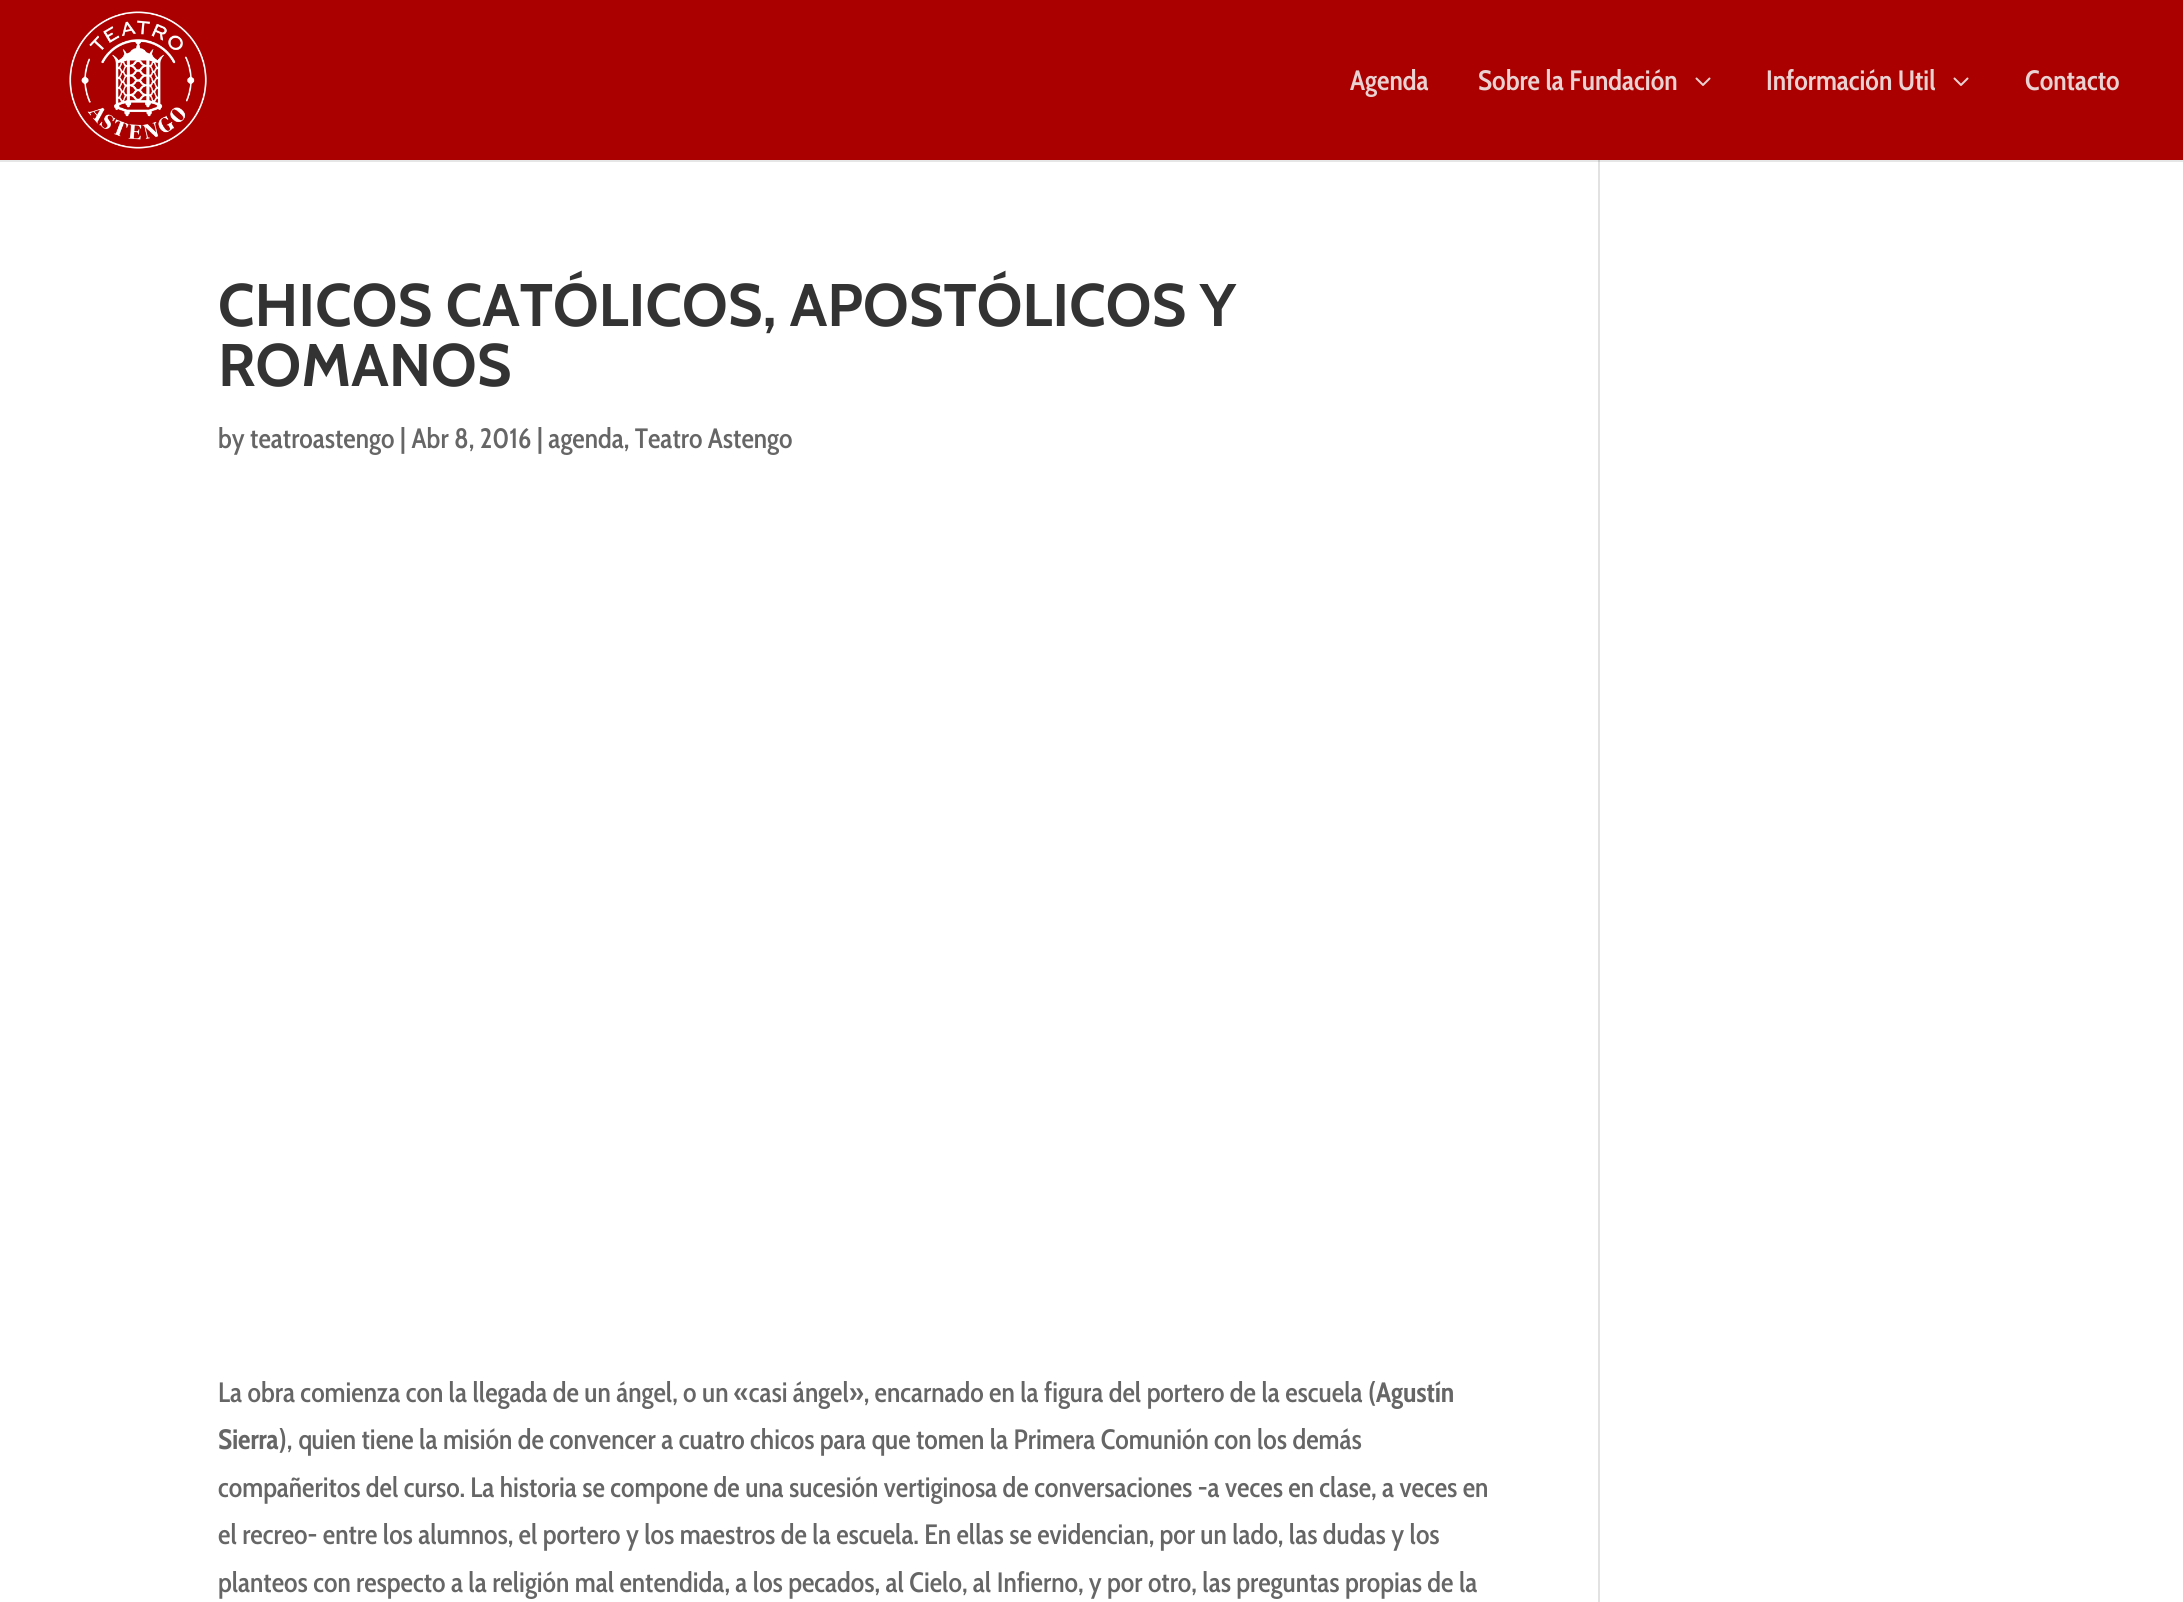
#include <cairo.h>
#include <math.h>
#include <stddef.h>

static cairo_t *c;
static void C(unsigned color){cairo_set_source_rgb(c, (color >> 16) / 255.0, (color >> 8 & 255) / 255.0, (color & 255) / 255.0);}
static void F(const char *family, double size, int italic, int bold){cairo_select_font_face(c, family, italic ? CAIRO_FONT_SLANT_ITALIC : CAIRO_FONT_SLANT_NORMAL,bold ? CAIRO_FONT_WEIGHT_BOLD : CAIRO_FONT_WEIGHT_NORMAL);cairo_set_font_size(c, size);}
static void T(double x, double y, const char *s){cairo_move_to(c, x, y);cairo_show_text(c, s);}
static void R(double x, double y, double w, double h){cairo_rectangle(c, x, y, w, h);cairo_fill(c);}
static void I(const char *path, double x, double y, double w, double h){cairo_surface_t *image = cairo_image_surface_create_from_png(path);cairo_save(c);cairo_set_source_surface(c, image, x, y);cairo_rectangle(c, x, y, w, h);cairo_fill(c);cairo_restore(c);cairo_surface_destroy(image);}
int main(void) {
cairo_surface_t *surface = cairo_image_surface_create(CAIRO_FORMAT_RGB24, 2183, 1602);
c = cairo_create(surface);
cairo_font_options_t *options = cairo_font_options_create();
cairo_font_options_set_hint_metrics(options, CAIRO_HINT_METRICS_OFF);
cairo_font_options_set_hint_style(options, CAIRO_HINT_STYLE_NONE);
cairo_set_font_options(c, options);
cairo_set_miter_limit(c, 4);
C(0xffffff);
cairo_paint(c);
C(0xe6e6e6);
R(0,160,2183,2);
C(0xaa0000);
R(0,0,2183,160);
I("1.png",69,11,138,138);
F("Cabin Condensed SemiBold",28,0,0);
C(0xead2d2);
T(1350,90,"Agenda");
T(1478,90,"Sobre la Fundación");
I("2.png",1695,77,16,9);
T(1766,90,"Información Util");
I("2.png",1953,77,16,9);
T(2025,90,"Contacto");
F("Cabin",60,0,1);
C(0x333333);
T(218,326,"CHICOS CATÓLICOS, APOSTÓLICOS Y");
T(218,386,"ROMANOS");
F("Cabin Condensed Medium",28,0,0);
C(0x666666);
T(218,448,"by teatroastengo | Abr 8, 2016 | agenda, Teatro Astengo");
T(218,1402,"La obra comienza con la llegada de un ángel, o un «casi ángel», encarnado en la figura del portero de la escuela (");
F("Cabin Condensed",28,0,1);
T(1376,1402,"Agustín");
T(218,1449,"Sierra");
F("Cabin Condensed Medium",28,0,0);
T(279,1449,"), quien tiene la misión de convencer a cuatro chicos para que tomen la Primera Comunión con los demás");
T(218,1497,"compañeritos del curso. La historia se compone de una sucesión vertiginosa de conversaciones -a veces en clase, a veces en");
T(218,1544,"el recreo- entre los alumnos, el portero y los maestros de la escuela. En ellas se evidencian, por un lado, las dudas y los");
T(218,1592,"planteos con respecto a la religión mal entendida, a los pecados, al Cielo, al Infierno, y por otro, las preguntas propias de la");
C(0xe2e2e2);
R(1598,160,2,1442);
C(0xcbcbcb);
R(1598,160,2,2);
cairo_surface_write_to_png(surface, "o.png");
cairo_font_options_destroy(options);
cairo_destroy(c);
cairo_surface_destroy(surface);
return 0;
}
